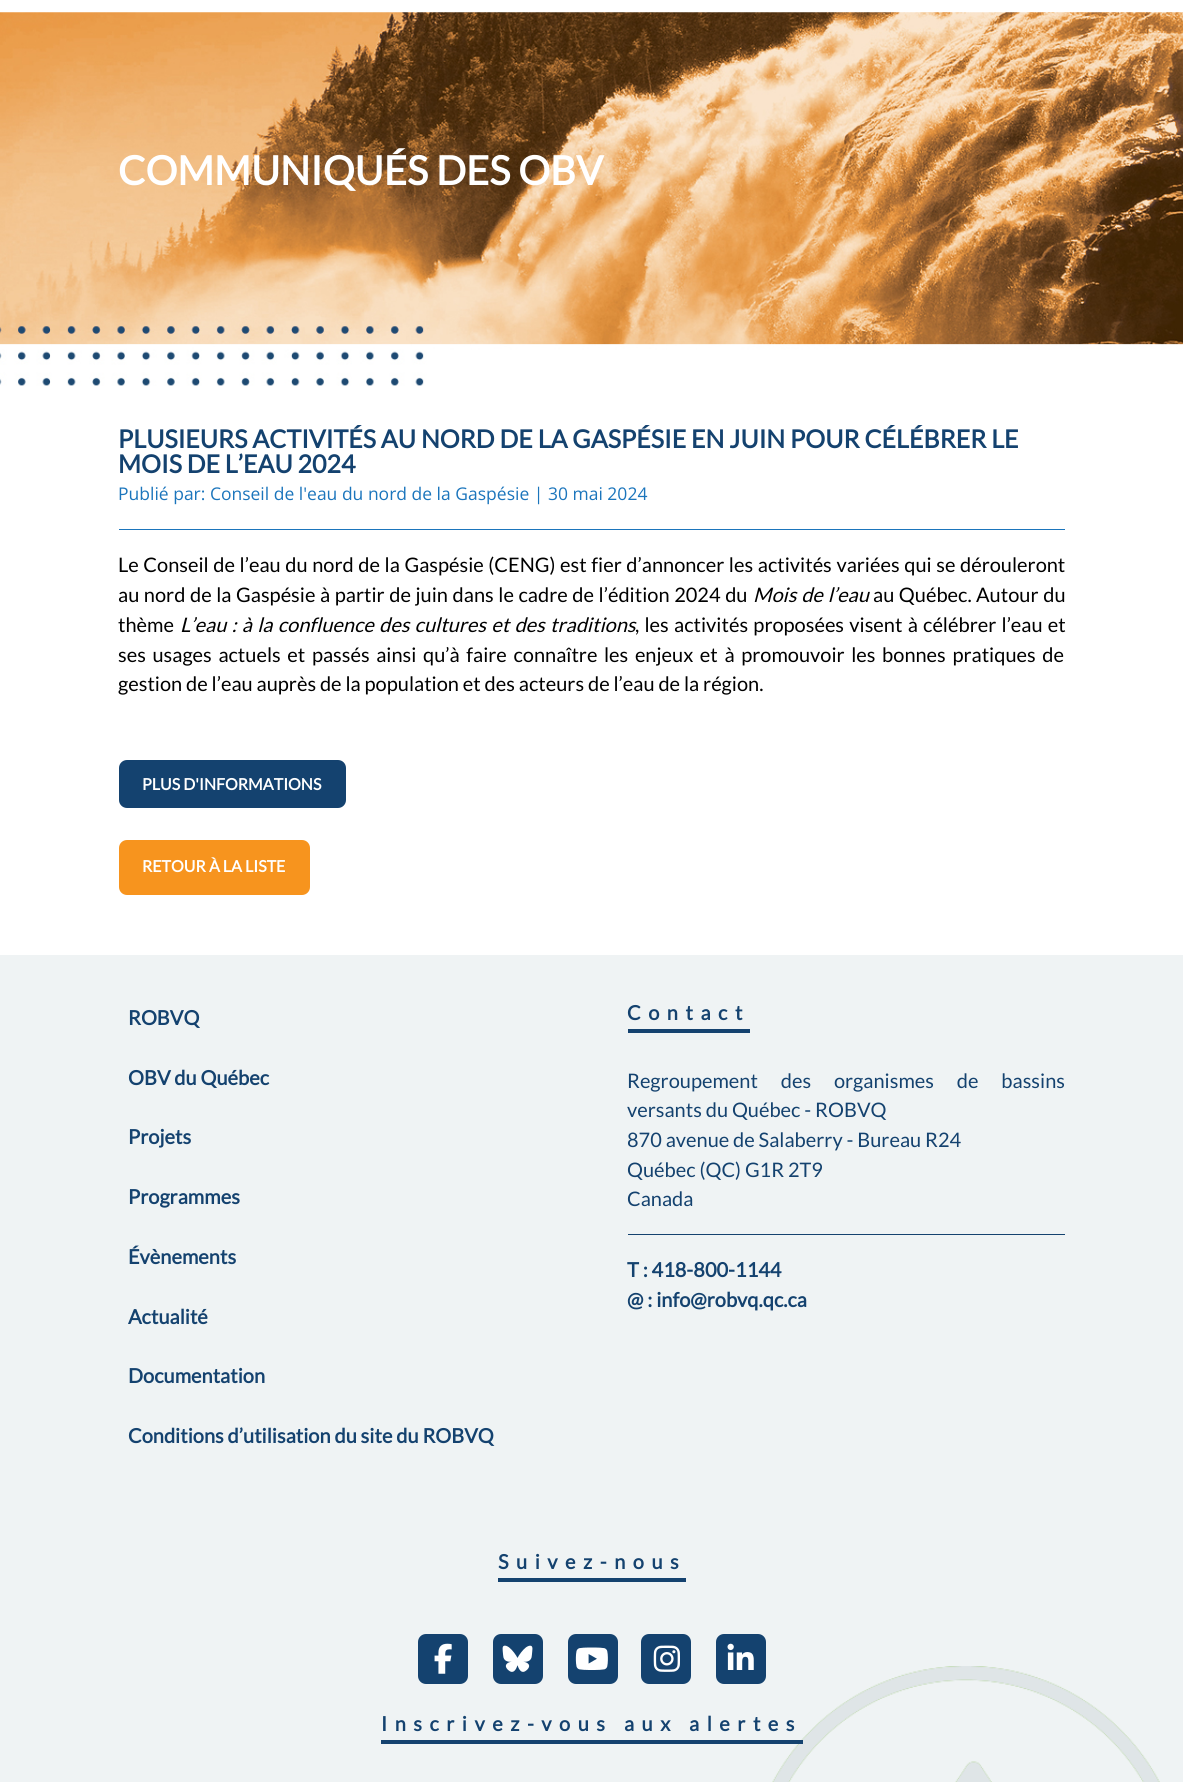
#include <cairo.h>
#include <math.h>
#include <stddef.h>

static cairo_t *c;
static void C(unsigned color){cairo_set_source_rgb(c, (color >> 16) / 255.0, (color >> 8 & 255) / 255.0, (color & 255) / 255.0);}
static void F(const char *family, double size, int italic, int bold){cairo_select_font_face(c, family, italic ? CAIRO_FONT_SLANT_ITALIC : CAIRO_FONT_SLANT_NORMAL,bold ? CAIRO_FONT_WEIGHT_BOLD : CAIRO_FONT_WEIGHT_NORMAL);cairo_set_font_size(c, size);}
static void T(double x, double y, const char *s){cairo_move_to(c, x, y);cairo_show_text(c, s);}
static void L(double x, double y, const char *s, double letter, double word){cairo_move_to(c, x, y);while (*s) {char ch[5] = {0};int n = 0;do ch[n++] = *s++; while ((*s & 0xC0) == 0x80);cairo_show_text(c, ch);cairo_rel_move_to(c, letter + word * (*ch == ' '), 0);}}
static void R(double x, double y, double w, double h){cairo_rectangle(c, x, y, w, h);cairo_fill(c);}
static void Q(double x, double y, double w, double h, double r){cairo_new_sub_path(c);cairo_arc(c, x + w - r, y + h - r, r, 0, M_PI / 2);cairo_arc(c, x + r, y + h - r, r, M_PI / 2, M_PI);cairo_arc(c, x + r, y + r, r, M_PI, 1.5 * M_PI);cairo_arc(c, x + w - r, y + r, r, 1.5 * M_PI, 2 * M_PI);cairo_close_path(c);}
static void I(const char *path, double x, double y, double w, double h){cairo_surface_t *image = cairo_image_surface_create_from_png(path);cairo_save(c);cairo_set_source_surface(c, image, x, y);cairo_rectangle(c, x, y, w, h);cairo_fill(c);cairo_restore(c);cairo_surface_destroy(image);}
int main(void) {
cairo_surface_t *surface = cairo_image_surface_create(CAIRO_FORMAT_RGB24, 1183, 1782);
c = cairo_create(surface);
cairo_font_options_t *options = cairo_font_options_create();
cairo_font_options_set_hint_metrics(options, CAIRO_HINT_METRICS_OFF);
cairo_font_options_set_hint_style(options, CAIRO_HINT_STYLE_NONE);
cairo_set_font_options(c, options);
cairo_set_miter_limit(c, 4);
C(0xffffff);
cairo_paint(c);
I("1.png",0,12,1183,374);
F("Lato",40,0,1);
C(0xffffff);
T(118,185,"COMMUNIQUÉS DES OBV");
F("Lato",25,0,1);
C(0x14426f);
T(118,448,"PLUSIEURS ACTIVITÉS AU NORD DE LA GASPÉSIE EN JUIN POUR CÉLÉBRER LE");
T(118,473,"MOIS DE L’EAU 2024");
F("Open Sans",17.5,0,0);
C(0x1b75bc);
T(118,500,"Publié par: Conseil de l'eau du nord de la Gaspésie | 30 mai 2024");
R(119,529,946,1);
F("Lato",20,0,0);
C(0x000000);
L(118,572,"Le Conseil de l’eau du nord de la Gaspésie (CENG) est fier d’annoncer les activités variées qui se dérouleront",0,.75);
L(118,602,"au nord de la Gaspésie à partir de juin dans le cadre de l’édition 2024 du",0,.75);
F("Lato",20,1,0);
L(753,602,"Mois de l’eau",0,1);
F("Lato",20,0,0);
L(873,602,"au Québec.",0,.75);
L(976,602,"Autour du",0,1);
T(118,632,"thème");
F("Lato",20,1,0);
L(180,632,"L’eau : à la confluence des cultures et des traditions",0,1.4);
F("Lato",20,0,0);
L(635,632,", les activités proposées visent à célébrer l’eau et",0,1.4);
L(118,662,"ses usages actuels et passés ainsi qu’à faire connaître les enjeux et à promouvoir les bonnes pratiques de",0,2.75);
T(118,691,"gestion de l’eau auprès de la population et des acteurs de l’eau de la région.");
C(0x14426f);
Q(119,760,227,48,8);
cairo_fill(c);
F("Lato",16,0,1);
C(0xffffff);
T(142,790,"PLUS D'INFORMATIONS");
C(0xf7941e);
Q(119,840,191,55,8);
cairo_fill(c);
C(0xffffff);
T(142,872,"RETOUR À LA LISTE");
C(0xeff3f4);
R(0,955,1183,827);
I("2.png",772,1666,388,116);
F("Lato",20,0,1);
C(0x14426f);
T(128,1025,"ROBVQ");
T(128,1085,"OBV du Québec");
T(128,1144,"Projets");
T(128,1204,"Programmes");
T(128,1264,"Évènements");
T(128,1324,"Actualité");
T(128,1383,"Documentation");
T(128,1443,"Conditions d’utilisation du site du ROBVQ");
L(627,1020,"Contact",7.5,0);
R(628,1029,122,4);
F("Lato",20,0,0);
L(627,1088,"Regroupement des organismes de bassins",0,19);
T(627,1117,"versants du Québec - ROBVQ");
T(627,1147,"870 avenue de Salaberry - Bureau R24");
T(627,1177,"Québec (QC) G1R 2T9");
T(627,1206,"Canada");
R(628,1234,437,1);
F("Lato",20,0,1);
T(627,1277,"T : 418-800-1144");
T(627,1307,"@ : info@robvq.qc.ca");
L(498,1569,"Suivez-nous",7.5,0);
R(498,1578,188,4);
Q(418,1634,50,50,8);
cairo_fill(c);
I("3.png",434,1643,18,31);
Q(493,1634,50,50,8);
cairo_fill(c);
I("4.png",502,1645,31,27);
Q(568,1634,50,50,8);
cairo_fill(c);
I("5.png",575,1647,33,23);
Q(641,1634,50,50,8);
cairo_fill(c);
I("6.png",653,1645,27,27);
Q(716,1634,50,50,8);
cairo_fill(c);
I("7.png",727,1643,27,27);
L(381,1731,"Inscrivez-vous aux alertes",7.5,0);
R(381,1740,422,4);
cairo_surface_write_to_png(surface, "o.png");
cairo_font_options_destroy(options);
cairo_destroy(c);
cairo_surface_destroy(surface);
return 0;
}
